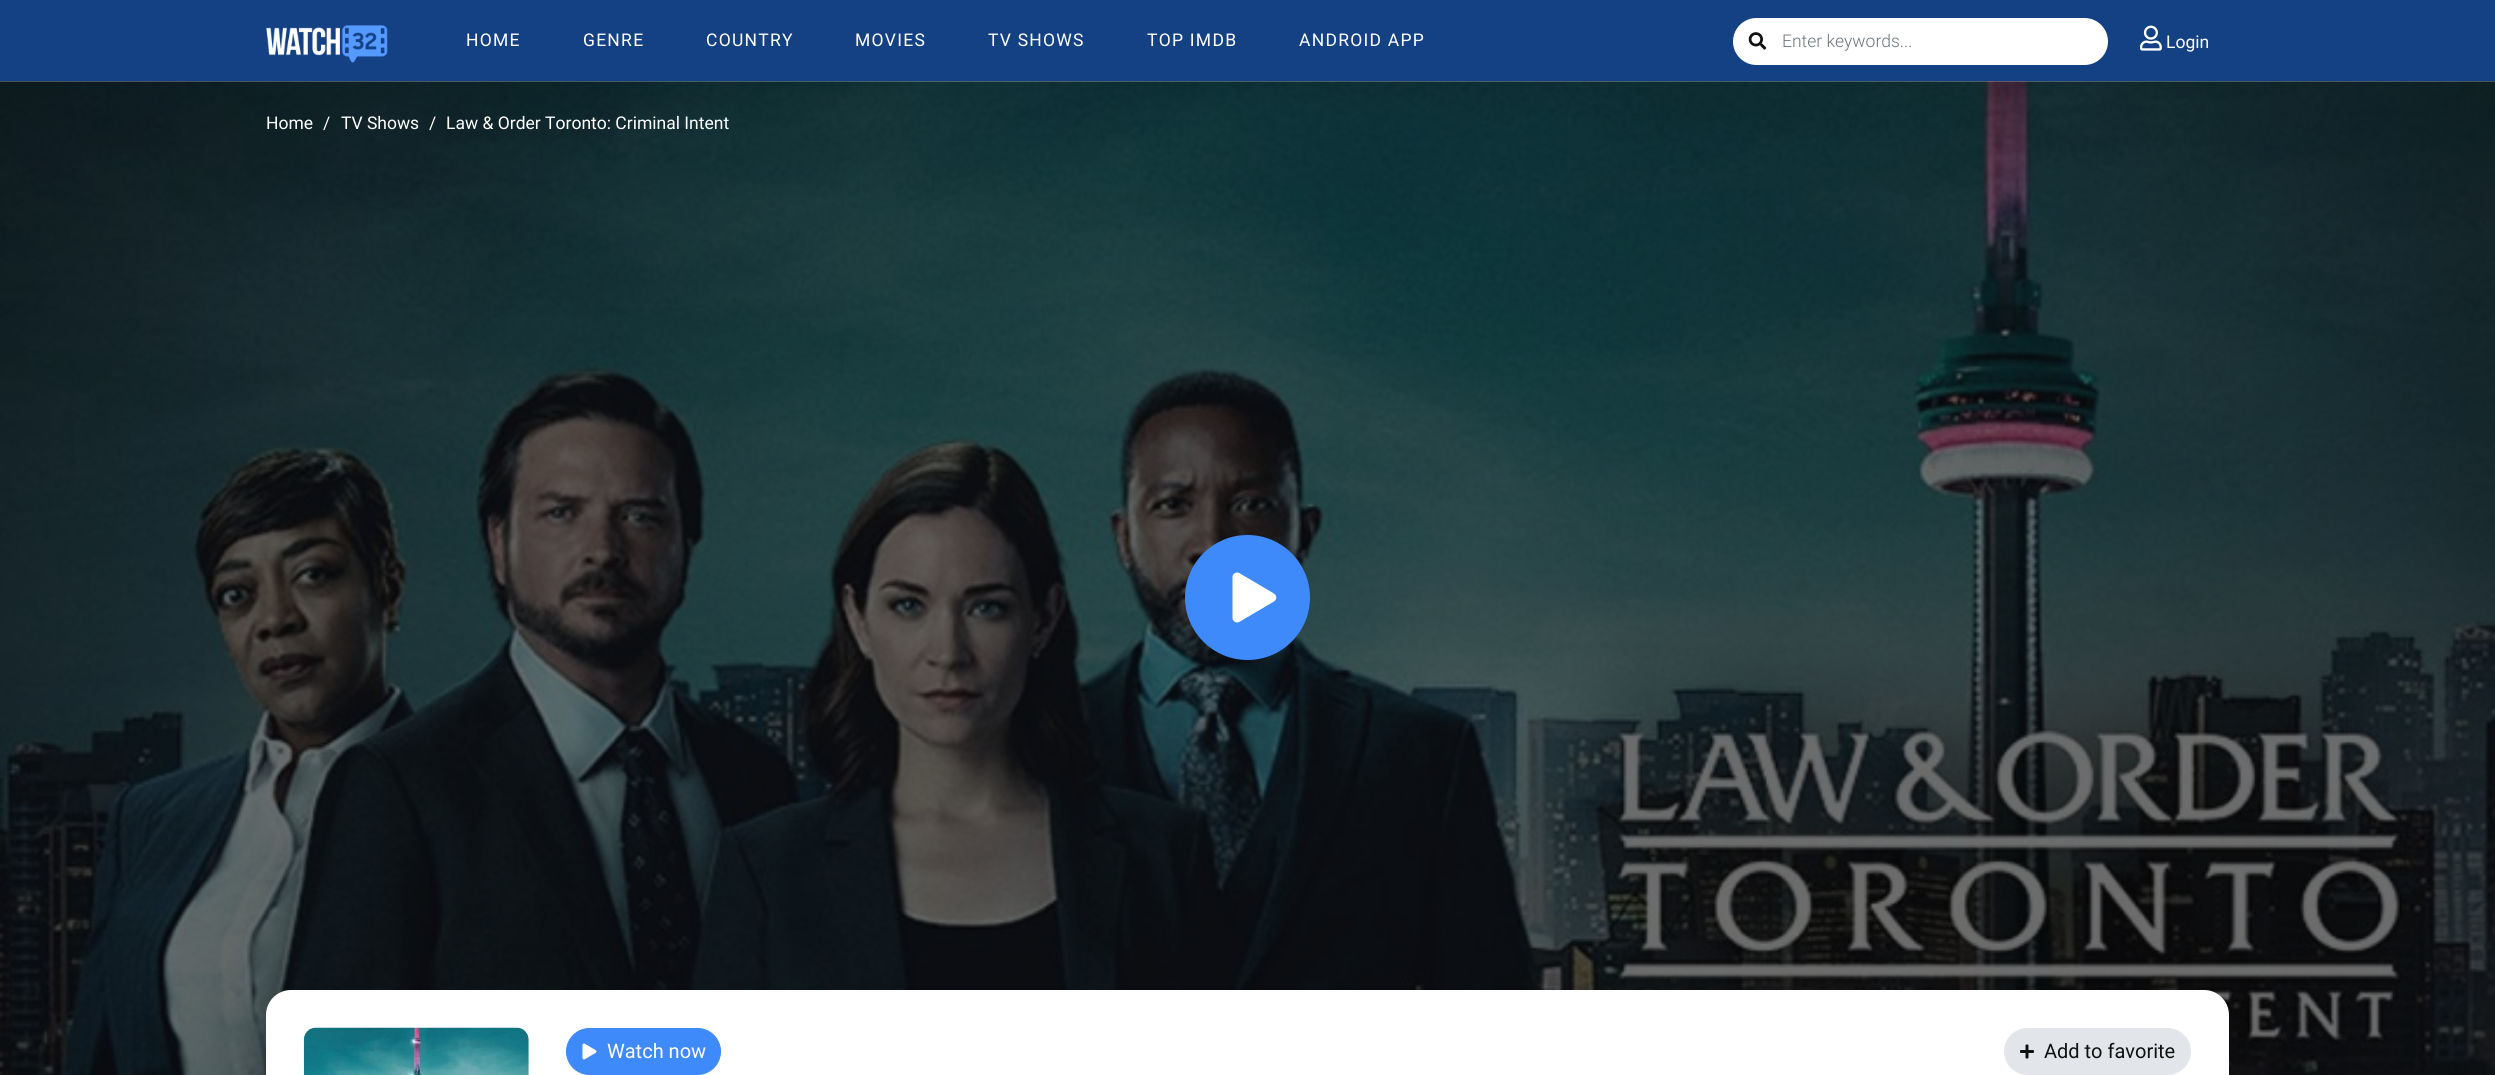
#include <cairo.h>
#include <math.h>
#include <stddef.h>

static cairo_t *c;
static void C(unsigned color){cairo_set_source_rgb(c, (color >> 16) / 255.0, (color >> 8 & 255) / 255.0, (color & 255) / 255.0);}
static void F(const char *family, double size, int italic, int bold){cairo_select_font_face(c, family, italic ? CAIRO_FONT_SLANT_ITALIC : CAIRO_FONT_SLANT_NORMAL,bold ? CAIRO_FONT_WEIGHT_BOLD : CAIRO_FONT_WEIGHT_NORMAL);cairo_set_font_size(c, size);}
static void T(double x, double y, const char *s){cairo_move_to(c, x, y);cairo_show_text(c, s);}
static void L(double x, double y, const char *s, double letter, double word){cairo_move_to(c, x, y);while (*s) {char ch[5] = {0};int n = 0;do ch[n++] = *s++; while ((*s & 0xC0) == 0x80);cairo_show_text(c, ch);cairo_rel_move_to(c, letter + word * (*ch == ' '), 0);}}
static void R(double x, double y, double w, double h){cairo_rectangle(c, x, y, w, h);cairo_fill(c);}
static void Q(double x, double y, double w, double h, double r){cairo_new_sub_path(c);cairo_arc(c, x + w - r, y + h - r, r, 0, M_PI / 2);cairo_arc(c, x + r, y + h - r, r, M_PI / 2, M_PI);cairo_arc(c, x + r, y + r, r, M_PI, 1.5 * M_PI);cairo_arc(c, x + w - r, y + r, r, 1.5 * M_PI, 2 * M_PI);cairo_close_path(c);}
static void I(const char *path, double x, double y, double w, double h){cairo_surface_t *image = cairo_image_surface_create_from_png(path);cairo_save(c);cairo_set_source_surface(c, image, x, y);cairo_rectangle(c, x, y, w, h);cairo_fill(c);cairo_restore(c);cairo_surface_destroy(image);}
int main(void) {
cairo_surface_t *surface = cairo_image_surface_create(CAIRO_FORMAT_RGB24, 2495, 1075);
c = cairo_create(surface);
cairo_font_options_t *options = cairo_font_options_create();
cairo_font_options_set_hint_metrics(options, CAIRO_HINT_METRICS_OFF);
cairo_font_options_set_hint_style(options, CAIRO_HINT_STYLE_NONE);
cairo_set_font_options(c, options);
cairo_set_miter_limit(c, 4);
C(0xffffff);
cairo_paint(c);
C(0x144184);
R(0,0,2495,81);
I("1.png",266,25,122,38);
F("Roboto",17.5,0,0);
C(0xffffff);
L(466,46,"HOME",1.25,0);
L(583,46,"GENRE",1.25,0);
L(706,46,"COUNTRY",1.25,0);
L(855,46,"MOVIES",1.25,0);
L(988,46,"TV SHOWS",1.25,0);
L(1147,46,"TOP IMDB",1.25,0);
L(1299,46,"ANDROID APP",1.25,0);
Q(1733,18,375,47,23.5);
cairo_fill(c);
I("2.png",1748,32,19,18);
F("Roboto Light",17.5,0,0);
C(0x6c757d);
T(1782,47,"Enter keywords...");
I("3.png",2140,25,22,26);
F("Roboto",17.5,0,0);
C(0xffffff);
T(2166,48,"Login");
I("4.png",0,81,2495,994);
T(266,129,"Home");
T(323,129,"/");
T(341,129,"TV Shows");
T(429,129,"/");
T(446,129,"Law & Order Toronto: Criminal Intent");
C(0x3e8afa);
cairo_new_path(c);
cairo_arc(c,1247.5,597.5,62.5,0,2 * M_PI);
cairo_fill(c);
I("5.png",1232,572,45,51);
C(0xffffff);
Q(266,990,1963,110,25);
cairo_fill(c);
I("6.png",303,1027,226,48);
C(0x3e8afa);
Q(566.5,1028.5,154,46,23);
cairo_fill_preserve(c);
cairo_set_line_width(c,1);
cairo_stroke(c);
I("7.png",582,1043,15,17);
F("Roboto",20,0,0);
C(0xffffff);
T(607,1058,"Watch now");
C(0xe2e6ea);
Q(2004.5,1028.5,186,46,23);
cairo_fill_preserve(c);
cairo_stroke(c);
I("8.png",2020,1044,14,15);
C(0x111111);
T(2044,1058,"Add to favorite");
cairo_surface_write_to_png(surface, "o.png");
cairo_font_options_destroy(options);
cairo_destroy(c);
cairo_surface_destroy(surface);
return 0;
}
